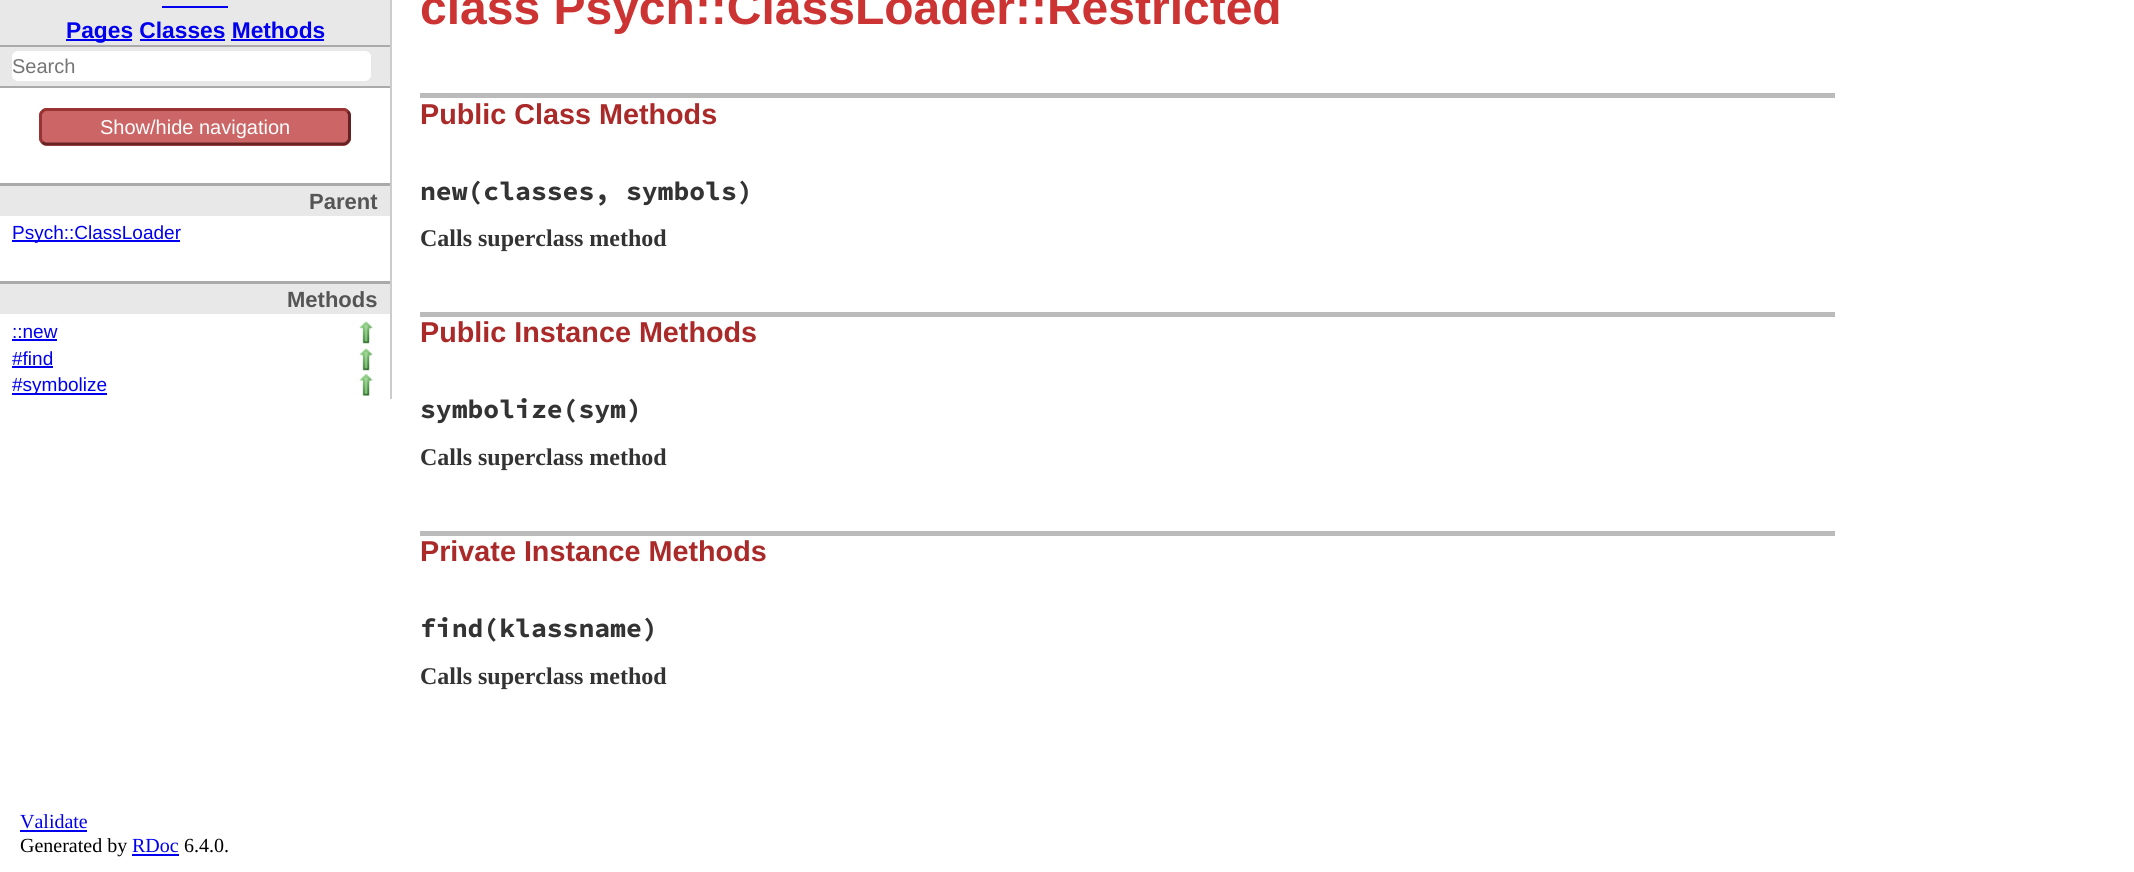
#include <cairo.h>
#include <math.h>
#include <stddef.h>

static cairo_t *c;
static void C(unsigned color){cairo_set_source_rgb(c, (color >> 16) / 255.0, (color >> 8 & 255) / 255.0, (color & 255) / 255.0);}
static void F(const char *family, double size, int italic, int bold){cairo_select_font_face(c, family, italic ? CAIRO_FONT_SLANT_ITALIC : CAIRO_FONT_SLANT_NORMAL,bold ? CAIRO_FONT_WEIGHT_BOLD : CAIRO_FONT_WEIGHT_NORMAL);cairo_set_font_size(c, size);}
static void T(double x, double y, const char *s){cairo_move_to(c, x, y);cairo_show_text(c, s);}
static void R(double x, double y, double w, double h){cairo_rectangle(c, x, y, w, h);cairo_fill(c);}
static void Q(double x, double y, double w, double h, double r){cairo_new_sub_path(c);cairo_arc(c, x + w - r, y + h - r, r, 0, M_PI / 2);cairo_arc(c, x + r, y + h - r, r, M_PI / 2, M_PI);cairo_arc(c, x + r, y + r, r, M_PI, 1.5 * M_PI);cairo_arc(c, x + w - r, y + r, r, 1.5 * M_PI, 2 * M_PI);cairo_close_path(c);}
static void I(const char *path, double x, double y, double w, double h){cairo_surface_t *image = cairo_image_surface_create_from_png(path);cairo_save(c);cairo_set_source_surface(c, image, x, y);cairo_rectangle(c, x, y, w, h);cairo_fill(c);cairo_restore(c);cairo_surface_destroy(image);}
int main(void) {
cairo_surface_t *surface = cairo_image_surface_create(CAIRO_FORMAT_RGB24, 2134, 872);
c = cairo_create(surface);
cairo_font_options_t *options = cairo_font_options_create();
cairo_font_options_set_hint_metrics(options, CAIRO_HINT_METRICS_OFF);
cairo_font_options_set_hint_style(options, CAIRO_HINT_STYLE_NONE);
cairo_set_font_options(c, options);
cairo_set_miter_limit(c, 4);
C(0xffffff);
cairo_paint(c);
C(0xcccccc);
R(390,0,2,399);
C(0xe8e8e8);
R(0,0,390,45);
C(0x0000ee);
R(162,6,66,2);
R(66,39,66,2);
F("Liberation Sans",22.75,0,1);
T(66,38,"Pages Classes Methods");
R(140,39,85,2);
R(231,39,93,2);
C(0xe8e8e8);
R(0,47,390,39);
C(0xaaaaaa);
R(0,45,390,2);
R(0,86,390,2);
C(0xffffff);
Q(12,51,359,30,6);
cairo_fill(c);
F("Liberation Sans",20,0,0);
C(0x757575);
T(12,73,"Search");
C(0xcc6666);
Q(39,108,312,38,8);
cairo_fill(c);
cairo_new_path(c);
cairo_move_to(c,347.5,111.5);
cairo_curve_to(c,349,112.5,349.5,114,349.5,115.5);
cairo_line_to(c,349.5,138);
cairo_curve_to(c,349.5,139.5,349,141,347.5,142);
cairo_curve_to(c,346.5,143.5,345,144,343.5,144);
cairo_line_to(c,46.5,144);
cairo_curve_to(c,45,144,43.5,143.5,42.5,142);
C(0x662222);
cairo_set_line_width(c,3);
cairo_stroke(c);
cairo_new_path(c);
cairo_move_to(c,42.5,142);
cairo_curve_to(c,41,141,40.5,139.5,40.5,138);
cairo_line_to(c,40.5,115.5);
cairo_curve_to(c,40.5,114,41,112.5,42.5,111.5);
cairo_curve_to(c,43.5,110,45,109.5,46.5,109.5);
cairo_line_to(c,343.5,109.5);
cairo_curve_to(c,345,109.5,346.5,110,347.5,111.5);
C(0x993333);
cairo_stroke(c);
C(0xffffff);
T(100,134,"Show/hide navigation");
C(0xaaaaaa);
R(0,183,390,3);
C(0xe8e8e8);
R(0,186,390,30);
F("Liberation Sans",22,0,1);
C(0x555555);
T(309,209,"Parent");
C(0x0000ee);
R(12,240,168,2);
F("Liberation Sans",19,0,0);
T(12,239,"Psych::ClassLoader");
C(0xaaaaaa);
R(0,281,390,3);
C(0xe8e8e8);
R(0,284,390,30);
F("Liberation Sans",22,0,1);
C(0x555555);
T(287,307,"Methods");
I("1.png",359,321,14,23);
F("Liberation Sans",19,0,0);
C(0x0000ee);
T(12,338,"::new");
R(12,339,45,2);
I("1.png",359,348,14,23);
T(12,365,"#find");
R(12,366,41,2);
I("2.png",359,374,14,22);
R(12,393,95,2);
T(12,391,"#symbolize");
F("Liberation Sans",48,0,1);
C(0xcc3333);
T(420,24,"class Psych::ClassLoader::Restricted");
C(0xbbbbbb);
R(420,93,1415,5);
F("Liberation Sans",28.75,0,1);
C(0xaa2929);
T(420,124,"Public Class Methods");
F("Source Code Pro",26.4,0,1);
C(0x333333);
T(420,200,"new(classes, symbols)");
F("Liberation Serif",24,0,1);
T(420,246,"Calls superclass method");
C(0xbbbbbb);
R(420,312,1415,5);
F("Liberation Sans",28.75,0,1);
C(0xaa2929);
T(420,342,"Public Instance Methods");
F("Source Code Pro",26.4,0,1);
C(0x333333);
T(420,418,"symbolize(sym)");
F("Liberation Serif",24,0,1);
T(420,465,"Calls superclass method");
C(0xbbbbbb);
R(420,531,1415,5);
F("Liberation Sans",28.75,0,1);
C(0xaa2929);
T(420,561,"Private Instance Methods");
F("Source Code Pro",26.4,0,1);
C(0x333333);
T(420,637,"find(klassname)");
F("Liberation Serif",24,0,1);
T(420,684,"Calls superclass method");
F("Liberation Serif",20,0,0);
C(0x0000ee);
T(20,828,"Validate");
R(20,830,67,2);
C(0x000000);
T(20,852,"Generated by");
C(0x0000ee);
T(132,852,"RDoc");
R(132,854,47,2);
C(0x000000);
T(184,852,"6.4.0.");
cairo_surface_write_to_png(surface, "o.png");
cairo_font_options_destroy(options);
cairo_destroy(c);
cairo_surface_destroy(surface);
return 0;
}
